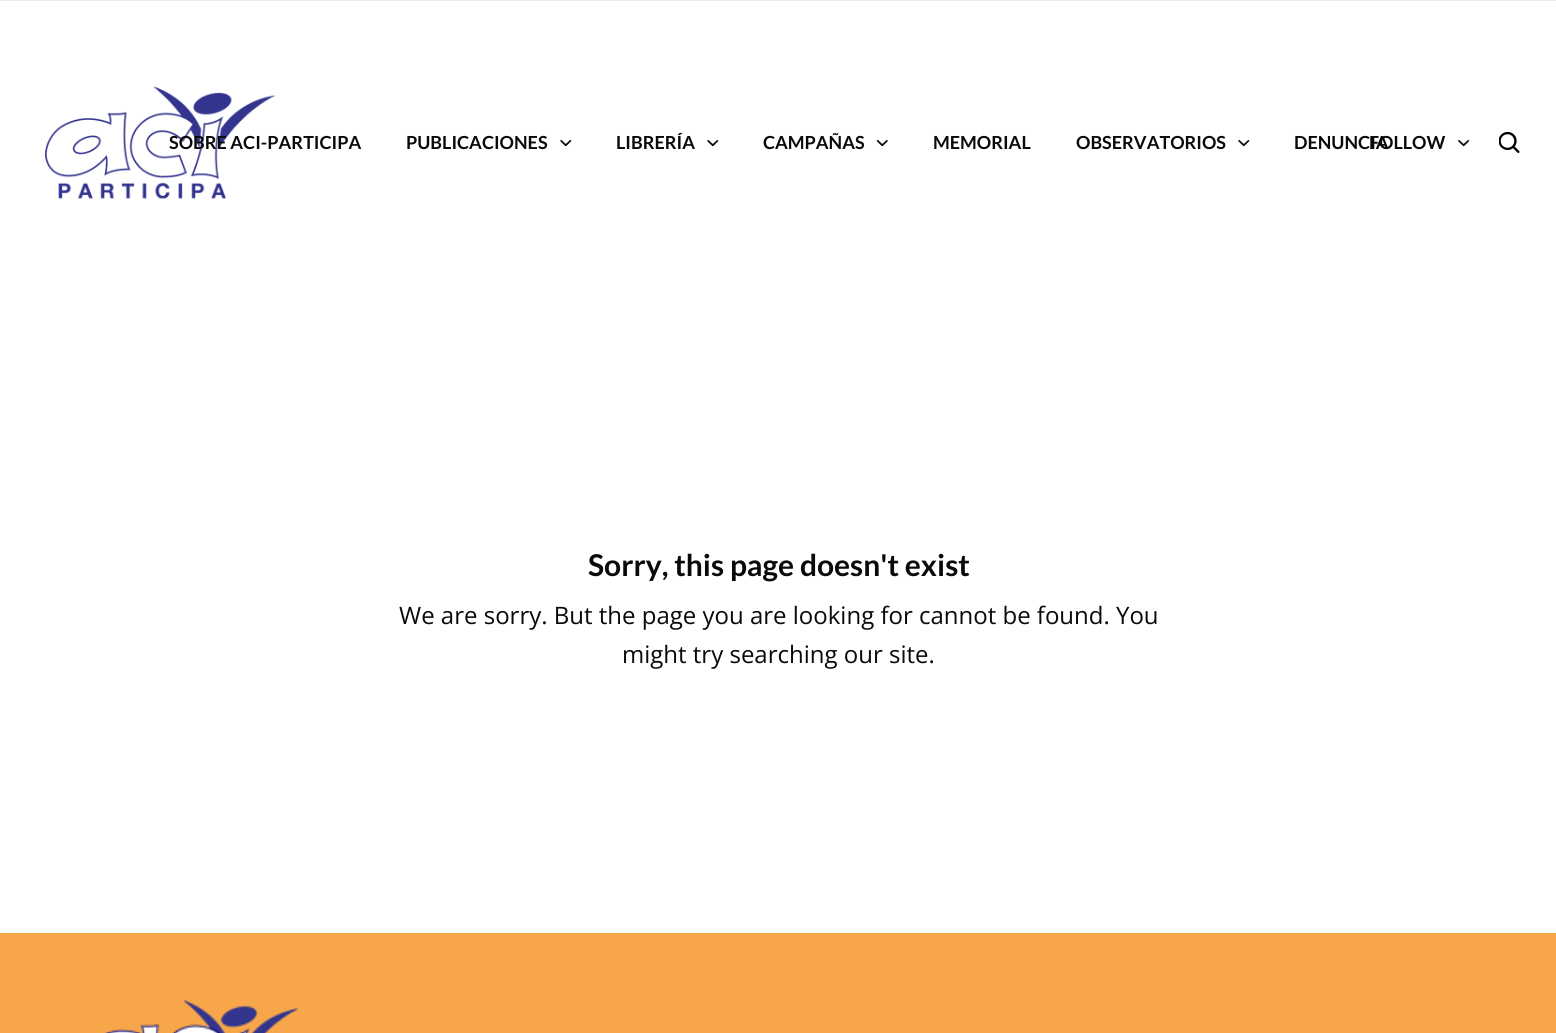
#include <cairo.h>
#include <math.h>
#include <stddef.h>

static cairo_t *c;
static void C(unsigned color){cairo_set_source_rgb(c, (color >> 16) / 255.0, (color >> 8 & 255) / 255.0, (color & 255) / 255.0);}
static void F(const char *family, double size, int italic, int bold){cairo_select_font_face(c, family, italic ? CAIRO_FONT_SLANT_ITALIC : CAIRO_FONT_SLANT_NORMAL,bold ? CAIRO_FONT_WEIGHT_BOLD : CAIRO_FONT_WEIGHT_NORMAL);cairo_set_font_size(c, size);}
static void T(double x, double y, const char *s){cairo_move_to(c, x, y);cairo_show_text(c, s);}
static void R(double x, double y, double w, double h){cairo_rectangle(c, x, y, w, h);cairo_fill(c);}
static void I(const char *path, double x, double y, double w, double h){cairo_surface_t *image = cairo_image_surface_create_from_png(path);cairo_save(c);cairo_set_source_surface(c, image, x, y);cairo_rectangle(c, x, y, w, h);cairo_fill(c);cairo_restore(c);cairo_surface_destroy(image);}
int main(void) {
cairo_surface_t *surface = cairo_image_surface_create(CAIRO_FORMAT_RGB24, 1556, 1033);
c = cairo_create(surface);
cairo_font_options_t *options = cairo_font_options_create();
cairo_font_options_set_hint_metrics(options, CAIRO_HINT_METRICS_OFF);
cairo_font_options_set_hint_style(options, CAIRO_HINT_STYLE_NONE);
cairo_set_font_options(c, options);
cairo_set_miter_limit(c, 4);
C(0xffffff);
cairo_paint(c);
C(0xebebeb);
R(0,0,1556,1);
I("1.png",45,86,231,113);
F("Lato",18,0,1);
C(0x0a0a0a);
T(169,149,"SOBRE ACI-PARTICIPA");
T(406,149,"PUBLICACIONES");
I("2.png",560,140,12,7);
T(616,149,"LIBRERÍA");
I("2.png",707,140,12,7);
T(763,149,"CAMPAÑAS");
I("3.png",876,140,12,7);
T(933,149,"MEMORIAL");
T(1076,149,"OBSERVATORIOS");
I("2.png",1238,140,12,7);
T(1294,149,"DENUNCIA");
T(1369,149,"FOLLOW");
I("4.png",1458,140,12,7);
I("5.png",1499,132,21,21);
F("Lato",30,0,1);
T(588,576,"Sorry, this page doesn't exist");
F("Open Sans",24,0,0);
T(399,624,"We are sorry. But the page you are looking for cannot be found. You");
T(622,663,"might try searching our site.");
C(0xf7a74a);
R(0,933,1556,100);
I("6.png",105,1000,194,33);
cairo_surface_write_to_png(surface, "o.png");
cairo_font_options_destroy(options);
cairo_destroy(c);
cairo_surface_destroy(surface);
return 0;
}
